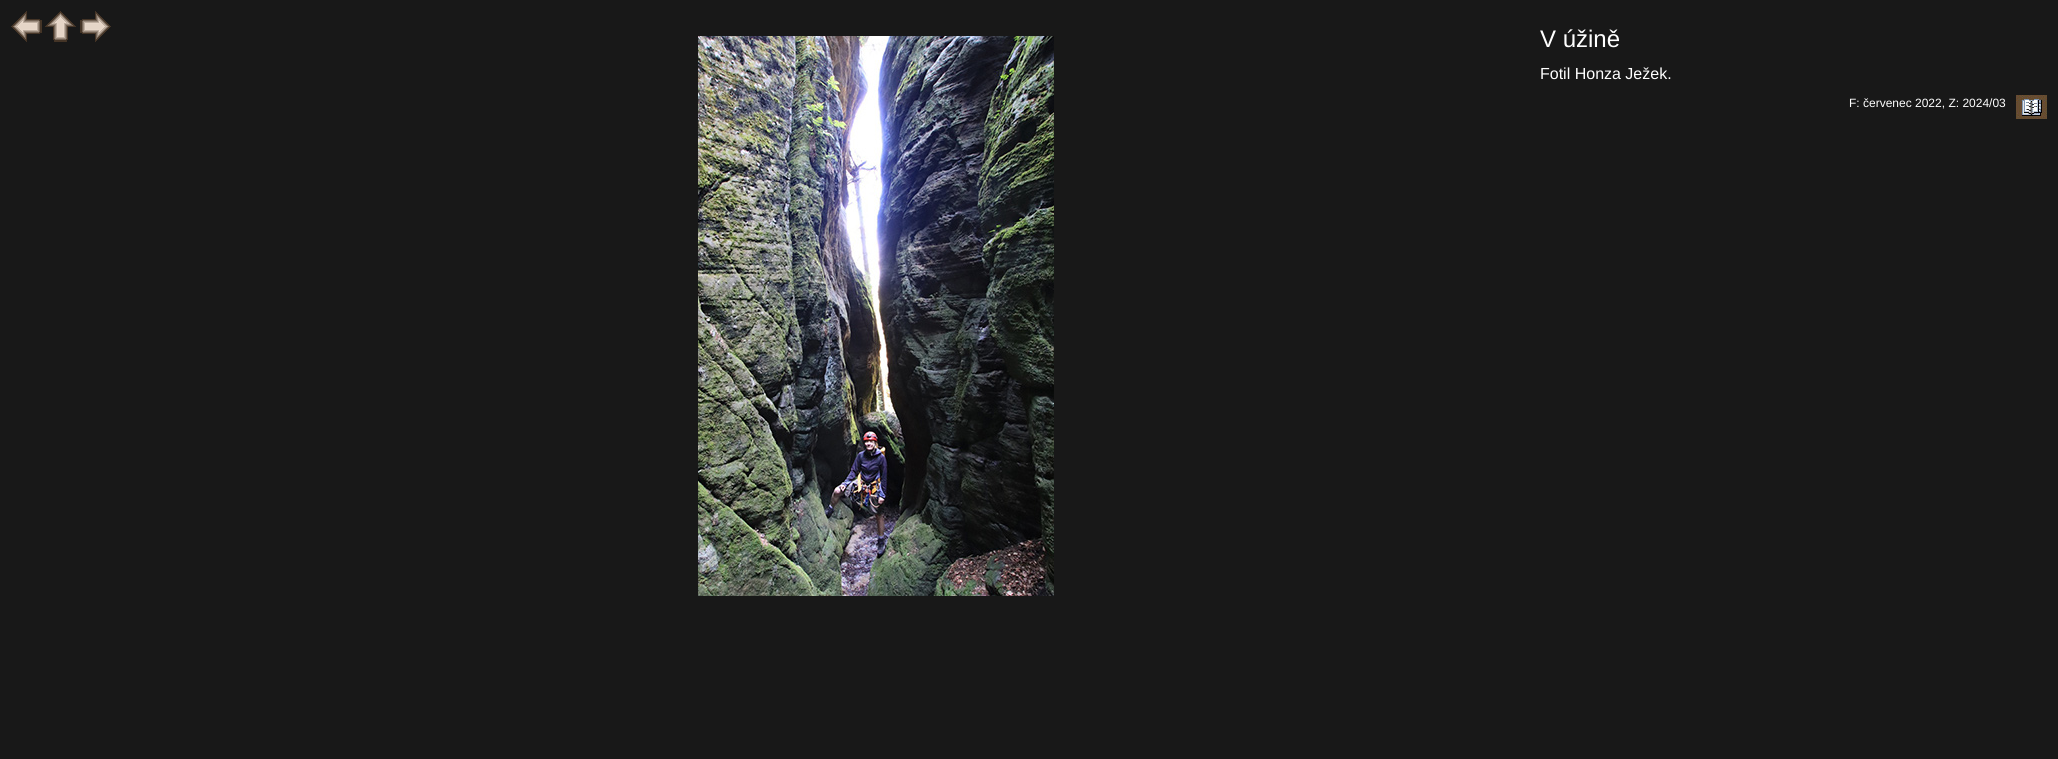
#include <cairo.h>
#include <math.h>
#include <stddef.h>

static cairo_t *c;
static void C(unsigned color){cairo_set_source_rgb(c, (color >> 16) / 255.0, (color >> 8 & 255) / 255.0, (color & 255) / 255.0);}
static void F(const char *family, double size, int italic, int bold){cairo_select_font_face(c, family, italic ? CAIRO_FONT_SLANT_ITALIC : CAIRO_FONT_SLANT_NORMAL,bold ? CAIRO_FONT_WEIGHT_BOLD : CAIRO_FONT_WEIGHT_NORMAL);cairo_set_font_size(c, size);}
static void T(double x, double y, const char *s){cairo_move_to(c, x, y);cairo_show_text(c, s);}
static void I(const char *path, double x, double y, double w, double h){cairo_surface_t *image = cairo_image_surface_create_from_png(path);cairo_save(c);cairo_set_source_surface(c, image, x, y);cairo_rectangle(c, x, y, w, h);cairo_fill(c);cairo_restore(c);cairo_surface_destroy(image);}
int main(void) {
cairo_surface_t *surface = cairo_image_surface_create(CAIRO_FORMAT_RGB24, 2058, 759);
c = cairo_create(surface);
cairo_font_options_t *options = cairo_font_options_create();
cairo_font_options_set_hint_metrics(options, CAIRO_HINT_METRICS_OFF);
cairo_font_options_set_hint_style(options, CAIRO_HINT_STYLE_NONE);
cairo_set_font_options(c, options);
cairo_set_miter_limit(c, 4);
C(0x181818);
cairo_paint(c);
I("1.png",11,11,31,31);
I("2.png",45,11,31,31);
I("3.png",80,11,31,31);
I("4.png",698,36,356,560);
F("Liberation Sans",24,0,0);
C(0xffffff);
T(1540,47,"V úžině");
F("Liberation Sans",16,0,0);
T(1540,79,"Fotil Honza Ježek.");
F("Liberation Sans",12,0,0);
T(1849,107,"F: červenec 2022, Z: 2024/03");
I("5.png",2016,95,31,24);
cairo_surface_write_to_png(surface, "o.png");
cairo_font_options_destroy(options);
cairo_destroy(c);
cairo_surface_destroy(surface);
return 0;
}
